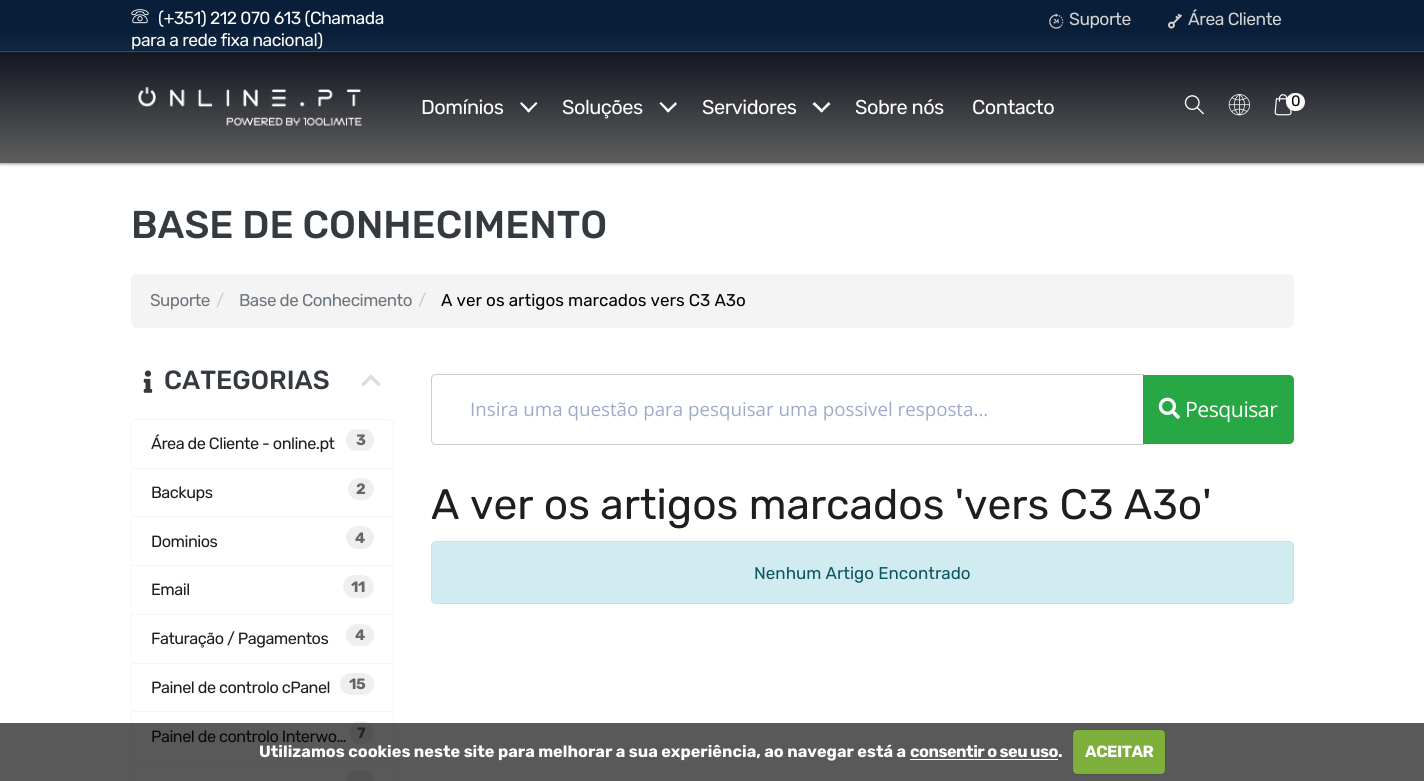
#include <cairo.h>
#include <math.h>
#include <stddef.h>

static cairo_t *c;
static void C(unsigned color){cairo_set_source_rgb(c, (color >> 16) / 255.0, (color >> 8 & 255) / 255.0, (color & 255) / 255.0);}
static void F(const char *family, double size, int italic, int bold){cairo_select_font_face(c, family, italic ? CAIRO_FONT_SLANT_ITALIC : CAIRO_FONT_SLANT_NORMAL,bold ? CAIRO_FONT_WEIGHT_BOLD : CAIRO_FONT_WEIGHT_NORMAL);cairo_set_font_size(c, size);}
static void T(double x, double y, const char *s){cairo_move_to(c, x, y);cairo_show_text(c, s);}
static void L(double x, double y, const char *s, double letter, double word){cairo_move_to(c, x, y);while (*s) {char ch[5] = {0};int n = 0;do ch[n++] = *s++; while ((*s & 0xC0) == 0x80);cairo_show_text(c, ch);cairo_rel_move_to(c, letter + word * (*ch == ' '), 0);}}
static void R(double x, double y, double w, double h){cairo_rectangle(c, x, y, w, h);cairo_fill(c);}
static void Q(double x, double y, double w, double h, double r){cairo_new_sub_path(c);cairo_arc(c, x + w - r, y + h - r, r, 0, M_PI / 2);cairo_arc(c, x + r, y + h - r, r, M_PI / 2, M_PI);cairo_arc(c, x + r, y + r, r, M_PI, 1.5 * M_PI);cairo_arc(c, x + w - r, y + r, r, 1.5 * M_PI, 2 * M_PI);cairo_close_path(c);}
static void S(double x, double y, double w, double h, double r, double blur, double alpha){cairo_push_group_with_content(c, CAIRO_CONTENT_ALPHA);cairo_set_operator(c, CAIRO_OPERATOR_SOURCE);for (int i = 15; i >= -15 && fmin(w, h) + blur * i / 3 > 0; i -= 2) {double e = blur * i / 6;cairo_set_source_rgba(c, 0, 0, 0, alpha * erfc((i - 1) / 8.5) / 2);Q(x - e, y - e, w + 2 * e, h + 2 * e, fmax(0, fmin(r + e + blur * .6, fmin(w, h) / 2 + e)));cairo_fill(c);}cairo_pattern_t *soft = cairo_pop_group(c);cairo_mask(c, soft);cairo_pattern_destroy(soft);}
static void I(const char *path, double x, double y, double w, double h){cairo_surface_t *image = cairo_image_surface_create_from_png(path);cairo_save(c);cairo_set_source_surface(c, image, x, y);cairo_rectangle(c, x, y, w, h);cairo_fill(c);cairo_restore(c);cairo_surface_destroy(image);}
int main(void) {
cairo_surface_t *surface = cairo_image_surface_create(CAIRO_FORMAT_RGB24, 1424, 781);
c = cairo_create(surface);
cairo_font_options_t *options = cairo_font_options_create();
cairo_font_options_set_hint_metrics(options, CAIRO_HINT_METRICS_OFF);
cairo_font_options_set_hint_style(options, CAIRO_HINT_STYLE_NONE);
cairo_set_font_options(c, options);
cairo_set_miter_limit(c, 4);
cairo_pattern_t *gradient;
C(0xffffff);
cairo_paint(c);
gradient = cairo_pattern_create_linear(713,0,713,163);
cairo_pattern_add_color_stop_rgba(gradient,0,0.016,0.035,0.082,1);
cairo_pattern_add_color_stop_rgba(gradient,.19,0.016,0.035,0.082,1);
cairo_pattern_add_color_stop_rgba(gradient,1,0.369,0.369,0.369,1);
cairo_set_source(c,gradient);
cairo_pattern_destroy(gradient);
R(0,53,1424,110);
gradient = cairo_pattern_create_linear(713,0,713,163);
cairo_pattern_add_color_stop_rgba(gradient,0,0.035,0.122,0.224,1);
cairo_pattern_add_color_stop_rgba(gradient,.19,0.035,0.122,0.224,1);
cairo_pattern_add_color_stop_rgba(gradient,1,0.275,0.349,0.416,1);
cairo_set_source(c,gradient);
cairo_pattern_destroy(gradient);
R(0,0,1424,53);
C(0x47576a);
R(0,51,1424,1);
I("1.png",131,9,18,15);
F("Rubik",17.5,0,0);
C(0xffffff);
L(158,24,"(+351) 212 070 613 (Chamada",-.5,0);
cairo_save(c);
cairo_set_fill_rule(c,CAIRO_FILL_RULE_EVEN_ODD);
cairo_new_path(c);
cairo_move_to(c,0,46);
cairo_line_to(c,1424,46);
cairo_line_to(c,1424,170);
cairo_line_to(c,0,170);
cairo_close_path(c);
cairo_move_to(c,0,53);
cairo_line_to(c,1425,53);
cairo_line_to(c,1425,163);
cairo_line_to(c,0,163);
cairo_close_path(c);
cairo_clip(c);
C(0x000000);
S(0,53,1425,110,0,2,.65);
cairo_restore(c);
L(131,46,"para a rede fixa nacional)",-.5,0);
I("2.png",1049,13,15,16);
C(0xd2d2d2);
L(1069,25,"Suporte",-.5,0);
I("3.png",1168,13,14,16);
L(1188,25,"Área Cliente",-.5,0);
I("4.png",137,87,226,39);
F("Rubik",20,0,0);
C(0xffffff);
L(421,114,"Domínios",-.5,0);
cairo_new_path(c);
cairo_move_to(c,536,102);
cairo_line_to(c,537.5,103.5);
cairo_line_to(c,528.5,112.5);
cairo_line_to(c,527,111);
cairo_close_path(c);
cairo_fill(c);
cairo_new_path(c);
cairo_move_to(c,521.5,102);
cairo_line_to(c,530.5,111);
cairo_line_to(c,528.5,112.5);
cairo_line_to(c,520,103.5);
cairo_close_path(c);
cairo_fill(c);
L(562,114,"Soluções",-.5,0);
cairo_new_path(c);
cairo_move_to(c,675.5,102);
cairo_line_to(c,677,104);
cairo_line_to(c,668,112.5);
cairo_line_to(c,666.5,111);
cairo_close_path(c);
cairo_fill(c);
cairo_new_path(c);
cairo_move_to(c,661,102);
cairo_line_to(c,670,111);
cairo_line_to(c,668,112.5);
cairo_line_to(c,659.5,103.5);
cairo_close_path(c);
cairo_fill(c);
L(702,114,"Servidores",-.5,0);
cairo_new_path(c);
cairo_move_to(c,828.5,102);
cairo_line_to(c,830.5,104);
cairo_line_to(c,821.5,112.5);
cairo_line_to(c,820,111);
cairo_close_path(c);
cairo_fill(c);
cairo_new_path(c);
cairo_move_to(c,814.5,102);
cairo_line_to(c,823.5,111);
cairo_line_to(c,821.5,112.5);
cairo_line_to(c,812.5,104);
cairo_close_path(c);
cairo_fill(c);
L(855,114,"Sobre nós",-.5,0);
L(972,114,"Contacto",-.5,0);
I("5.png",1184,95,20,20);
I("6.png",1228,94,22,22);
I("7.png",1274,94,18,22);
Q(1286,93,19,18,9);
cairo_fill(c);
F("Rubik",15,0,0);
C(0x000000);
L(1291,106,"0",-.5,0);
F("Rubik Medium",38.75,0,0);
C(0x343a40);
T(131,238,"BASE DE CONHECIMENTO");
C(0xf4f4f4);
Q(131,274,1163,54,6);
cairo_fill(c);
F("Rubik",17,0,0);
C(0x6c757d);
L(150,306,"Suporte",-.5,0);
C(0xcccccc);
T(216,306,"/");
C(0x6c757d);
L(239,306,"Base de Conhecimento",-.5,0);
C(0xcccccc);
T(418,306,"/");
C(0x000000);
T(441,306,"A ver os artigos marcados vers C3 A3o");
I("8.png",143,370,10,23);
F("Rubik Medium",26.25,0,0);
C(0x343a40);
T(164,389,"CATEGORIAS");
I("9.png",361,374,20,12);
cairo_new_path(c);
cairo_move_to(c,136,419.5);
cairo_line_to(c,389,419.5);
cairo_curve_to(c,391.5,419.5,393.5,421.5,393.5,424);
cairo_line_to(c,393.5,468.5);
cairo_line_to(c,131.5,468.5);
cairo_line_to(c,131.5,424);
cairo_curve_to(c,131.5,421.5,133.5,419.5,136,419.5);
cairo_close_path(c);
C(0xf5f5f5);
cairo_set_line_width(c,1);
cairo_stroke(c);
F("Rubik",16.25,0,0);
C(0x1e1e1e);
L(151,449,"Área de Cliente - online.pt",-.5,0);
C(0xefefef);
Q(346,429,28,22,11);
cairo_fill(c);
F("Rubik",15,0,1);
C(0x666666);
L(356,445,"3",-.5,0);
cairo_rectangle(c,131.5,468.5,262,49);
C(0xf5f5f5);
cairo_stroke(c);
F("Rubik",16.25,0,0);
C(0x1e1e1e);
L(151,498,"Backups",-.5,0);
C(0xefefef);
Q(348,478,26,22,11);
cairo_fill(c);
F("Rubik",15,0,1);
C(0x666666);
L(356,494,"2",-.5,0);
C(0xffffff);
R(132,517,261,1);
cairo_rectangle(c,131.5,516.5,262,49);
C(0xf5f5f5);
cairo_stroke(c);
F("Rubik",16.25,0,0);
C(0x1e1e1e);
L(151,547,"Dominios",-.5,0);
C(0xefefef);
Q(346,526,28,23,11.5);
cairo_fill(c);
F("Rubik",15,0,1);
C(0x666666);
L(355,543,"4",-.5,0);
cairo_rectangle(c,131.5,565.5,262,49);
C(0xf5f5f5);
cairo_stroke(c);
F("Rubik",16.25,0,0);
C(0x1e1e1e);
L(151,595,"Email",-.5,0);
C(0xefefef);
Q(343,575,31,23,11.5);
cairo_fill(c);
F("Rubik",15,0,1);
C(0x666666);
L(351,592,"11",-.5,0);
cairo_rectangle(c,131.5,614.5,262,49);
C(0xf5f5f5);
cairo_stroke(c);
F("Rubik",16.25,0,0);
C(0x1e1e1e);
L(151,644,"Faturação / Pagamentos",-.5,0);
C(0xefefef);
Q(346,624,28,22,11);
cairo_fill(c);
F("Rubik",15,0,1);
C(0x666666);
L(355,640,"4",-.5,0);
cairo_rectangle(c,131.5,663.5,262,49);
C(0xf5f5f5);
cairo_stroke(c);
F("Rubik",16.25,0,0);
C(0x1e1e1e);
L(151,693,"Painel de controlo cPanel",-.5,0);
C(0xefefef);
Q(340,673,34,22,11);
cairo_fill(c);
F("Rubik",15,0,1);
C(0x666666);
L(349,689,"15",-.5,0);
C(0xffffff);
R(132,712,261,1);
cairo_rectangle(c,131.5,711.5,262,49);
C(0xf5f5f5);
cairo_stroke(c);
F("Rubik",16.25,0,0);
C(0x1e1e1e);
L(151,742,"Painel de controlo Interwo…",-.5,0);
C(0xefefef);
Q(349,721,25,23,11.5);
cairo_fill(c);
F("Rubik",15,0,1);
C(0x666666);
L(357,738,"7",-.5,0);
cairo_rectangle(c,131.5,760.5,262,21);
C(0xf5f5f5);
cairo_stroke(c);
C(0xefefef);
Q(346,770,28,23,11.5);
cairo_fill(c);
cairo_new_path(c);
cairo_move_to(c,436,374.5);
cairo_line_to(c,1143.5,374.5);
cairo_line_to(c,1143.5,444.5);
cairo_line_to(c,436,444.5);
cairo_curve_to(c,433.5,444.5,431.5,442.5,431.5,440);
cairo_line_to(c,431.5,379);
cairo_curve_to(c,431.5,376.5,433.5,374.5,436,374.5);
cairo_close_path(c);
C(0xcccccc);
cairo_stroke(c);
F("Open Sans",18.75,0,0);
C(0xa1a9cb);
T(470,416,"Insira uma questão para pesquisar uma possivel resposta...");
C(0x28a745);
cairo_new_path(c);
cairo_move_to(c,1143,375);
cairo_line_to(c,1289,375);
cairo_curve_to(c,1292,375,1294,377,1294,380);
cairo_line_to(c,1294,439);
cairo_curve_to(c,1294,442,1292,444,1289,444);
cairo_line_to(c,1143,444);
cairo_close_path(c);
cairo_fill(c);
I("10.png",1158,397,22,22);
F("Open Sans",21.25,0,0);
C(0xffffff);
L(1185,417,"Pesquisar",-.5,0);
F("Rubik",42.5,0,0);
C(0x1e1e1e);
T(431,519,"A ver os artigos marcados 'vers C3 A3o'");
C(0xd1ecf1);
Q(431.5,541.5,862,62,4.5);
cairo_fill_preserve(c);
C(0xbee5eb);
cairo_stroke(c);
F("Rubik",17,0,0);
C(0x0c5460);
T(754,579,"Nenhum Artigo Encontrado");
cairo_set_source_rgba(c,0,0,0,0.65);
R(0,723,1424,58);
F("Rubik",16.25,0,1);
C(0xffffff);
T(259,757,"Utilizamos cookies neste site para melhorar a sua experiência, ao navegar está a");
L(910,757,"consentir o seu uso",-.5,0);
R(910,759,148,1);
T(1058,757,".");
C(0x000000);
S(1073,730,92,44,4,1,.25);
C(0x7daf3b);
Q(1073,730,92,44,4);
cairo_fill(c);
C(0xffffff);
L(1085,757,"ACEITAR",-.5,0);
cairo_surface_write_to_png(surface, "o.png");
cairo_font_options_destroy(options);
cairo_destroy(c);
cairo_surface_destroy(surface);
return 0;
}
